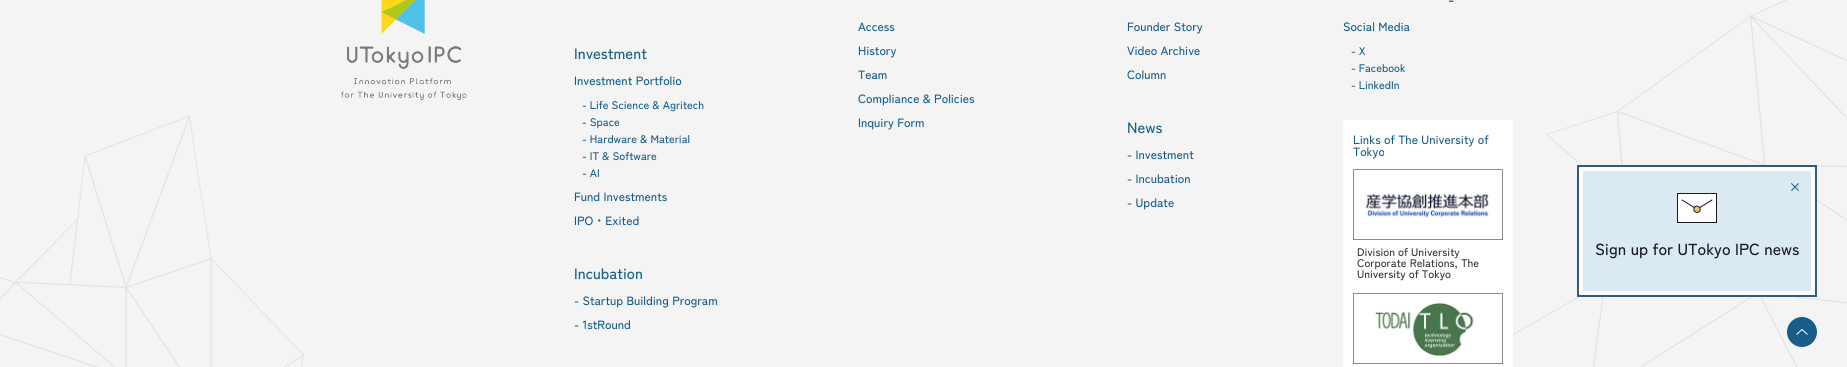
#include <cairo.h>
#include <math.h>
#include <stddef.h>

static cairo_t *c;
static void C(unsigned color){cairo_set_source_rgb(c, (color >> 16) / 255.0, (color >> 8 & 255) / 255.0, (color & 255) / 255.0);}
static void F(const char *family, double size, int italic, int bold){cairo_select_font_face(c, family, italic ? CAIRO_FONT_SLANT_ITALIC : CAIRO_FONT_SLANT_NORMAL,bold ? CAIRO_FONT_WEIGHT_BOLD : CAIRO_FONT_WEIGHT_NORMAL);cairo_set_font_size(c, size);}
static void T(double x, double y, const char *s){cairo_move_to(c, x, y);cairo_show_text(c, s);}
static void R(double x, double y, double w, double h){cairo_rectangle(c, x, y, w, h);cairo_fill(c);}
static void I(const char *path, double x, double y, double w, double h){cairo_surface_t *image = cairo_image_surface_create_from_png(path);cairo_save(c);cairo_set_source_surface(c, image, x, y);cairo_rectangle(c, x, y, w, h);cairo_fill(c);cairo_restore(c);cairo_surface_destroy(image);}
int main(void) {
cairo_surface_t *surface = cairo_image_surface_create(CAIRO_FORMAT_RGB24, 1847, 367);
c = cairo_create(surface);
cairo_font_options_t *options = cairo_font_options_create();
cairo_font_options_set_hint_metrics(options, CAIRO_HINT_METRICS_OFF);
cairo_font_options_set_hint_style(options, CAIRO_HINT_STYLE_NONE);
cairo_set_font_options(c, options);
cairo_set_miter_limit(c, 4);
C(0xf4f4f4);
cairo_paint(c);
I("1.png",0,114,304,253);
I("2.png",341,0,126,100);
F("Zen Kaku Gothic Antique Medium",15,0,0);
C(0x165d89);
T(574,59,"Investment");
F("Zen Kaku Gothic Antique Medium",12,0,0);
T(574,85,"Investment Portfolio");
F("Zen Kaku Gothic Antique Medium",11,0,0);
T(582,109,"- Life Science & Agritech");
T(582,126,"- Space");
T(582,143,"- Hardware & Material");
T(582,160,"- IT & Software");
T(582,177,"- AI");
F("Zen Kaku Gothic Antique Medium",12,0,0);
T(574,201,"Fund Investments");
T(574,225,"IPO・Exited");
F("Zen Kaku Gothic Antique Medium",15,0,0);
T(574,279,"Incubation");
F("Zen Kaku Gothic Antique Medium",12,0,0);
T(574,305,"- Startup Building Program");
T(574,329,"- 1stRound");
T(858,31,"Access");
T(858,55,"History");
T(858,79,"Team");
T(858,103,"Compliance & Policies");
T(858,127,"Inquiry Form");
T(1127,31,"Founder Story");
T(1127,55,"Video Archive");
T(1127,79,"Column");
F("Zen Kaku Gothic Antique Medium",15,0,0);
T(1127,133,"News");
F("Zen Kaku Gothic Antique Medium",12,0,0);
T(1127,159,"- Investment");
T(1127,183,"- Incubation");
T(1127,207,"- Update");
F("Zen Kaku Gothic Antique Medium",15,0,0);
T(1448,5,"-");
F("Zen Kaku Gothic Antique Medium",12,0,0);
T(1343,31,"Social Media");
F("Zen Kaku Gothic Antique Medium",11,0,0);
T(1351,55,"- X");
T(1351,72,"- Facebook");
T(1351,89,"- LinkedIn");
C(0xffffff);
R(1343,120,170,247);
F("Zen Kaku Gothic Antique Medium",12,0,0);
C(0x165d89);
T(1353,144,"Links of The University of");
T(1353,156,"Tokyo");
cairo_rectangle(c,1353.5,169.5,149,70);
C(0x8b8b8b);
cairo_set_line_width(c,1);
cairo_stroke(c);
I("3.png",1365,193,124,25);
F("Zen Kaku Gothic Antique Medium",11,0,0);
C(0x333333);
T(1357,256,"Division of University");
T(1357,267,"Corporate Relations, The");
T(1357,278,"University of Tokyo");
cairo_rectangle(c,1353.5,293.5,149,70);
C(0x8b8b8b);
cairo_stroke(c);
I("4.png",1375,302,99,55);
I("5.png",1513,0,334,367);
C(0xffffff);
cairo_rectangle(c,1578,166,238,130);
cairo_fill_preserve(c);
C(0x2f5a82);
cairo_set_line_width(c,2);
cairo_stroke(c);
C(0xdbeaf2);
R(1583,171,228,120);
I("6.png",1791,183,8,8);
I("7.png",1677,193,40,30);
F("Zen Kaku Gothic Antique Medium",16,0,0);
C(0x191928);
T(1595,255,"Sign up for UTokyo IPC news");
C(0x165d89);
cairo_new_path(c);
cairo_arc(c,1802,332,15,0,2 * M_PI);
cairo_fill(c);
cairo_new_path(c);
cairo_move_to(c,1807.5,334.5);
cairo_line_to(c,1802,329.5);
cairo_line_to(c,1796.5,334.5);
C(0xffffff);
cairo_set_line_width(c,1);
cairo_stroke(c);
cairo_surface_write_to_png(surface, "o.png");
cairo_font_options_destroy(options);
cairo_destroy(c);
cairo_surface_destroy(surface);
return 0;
}
